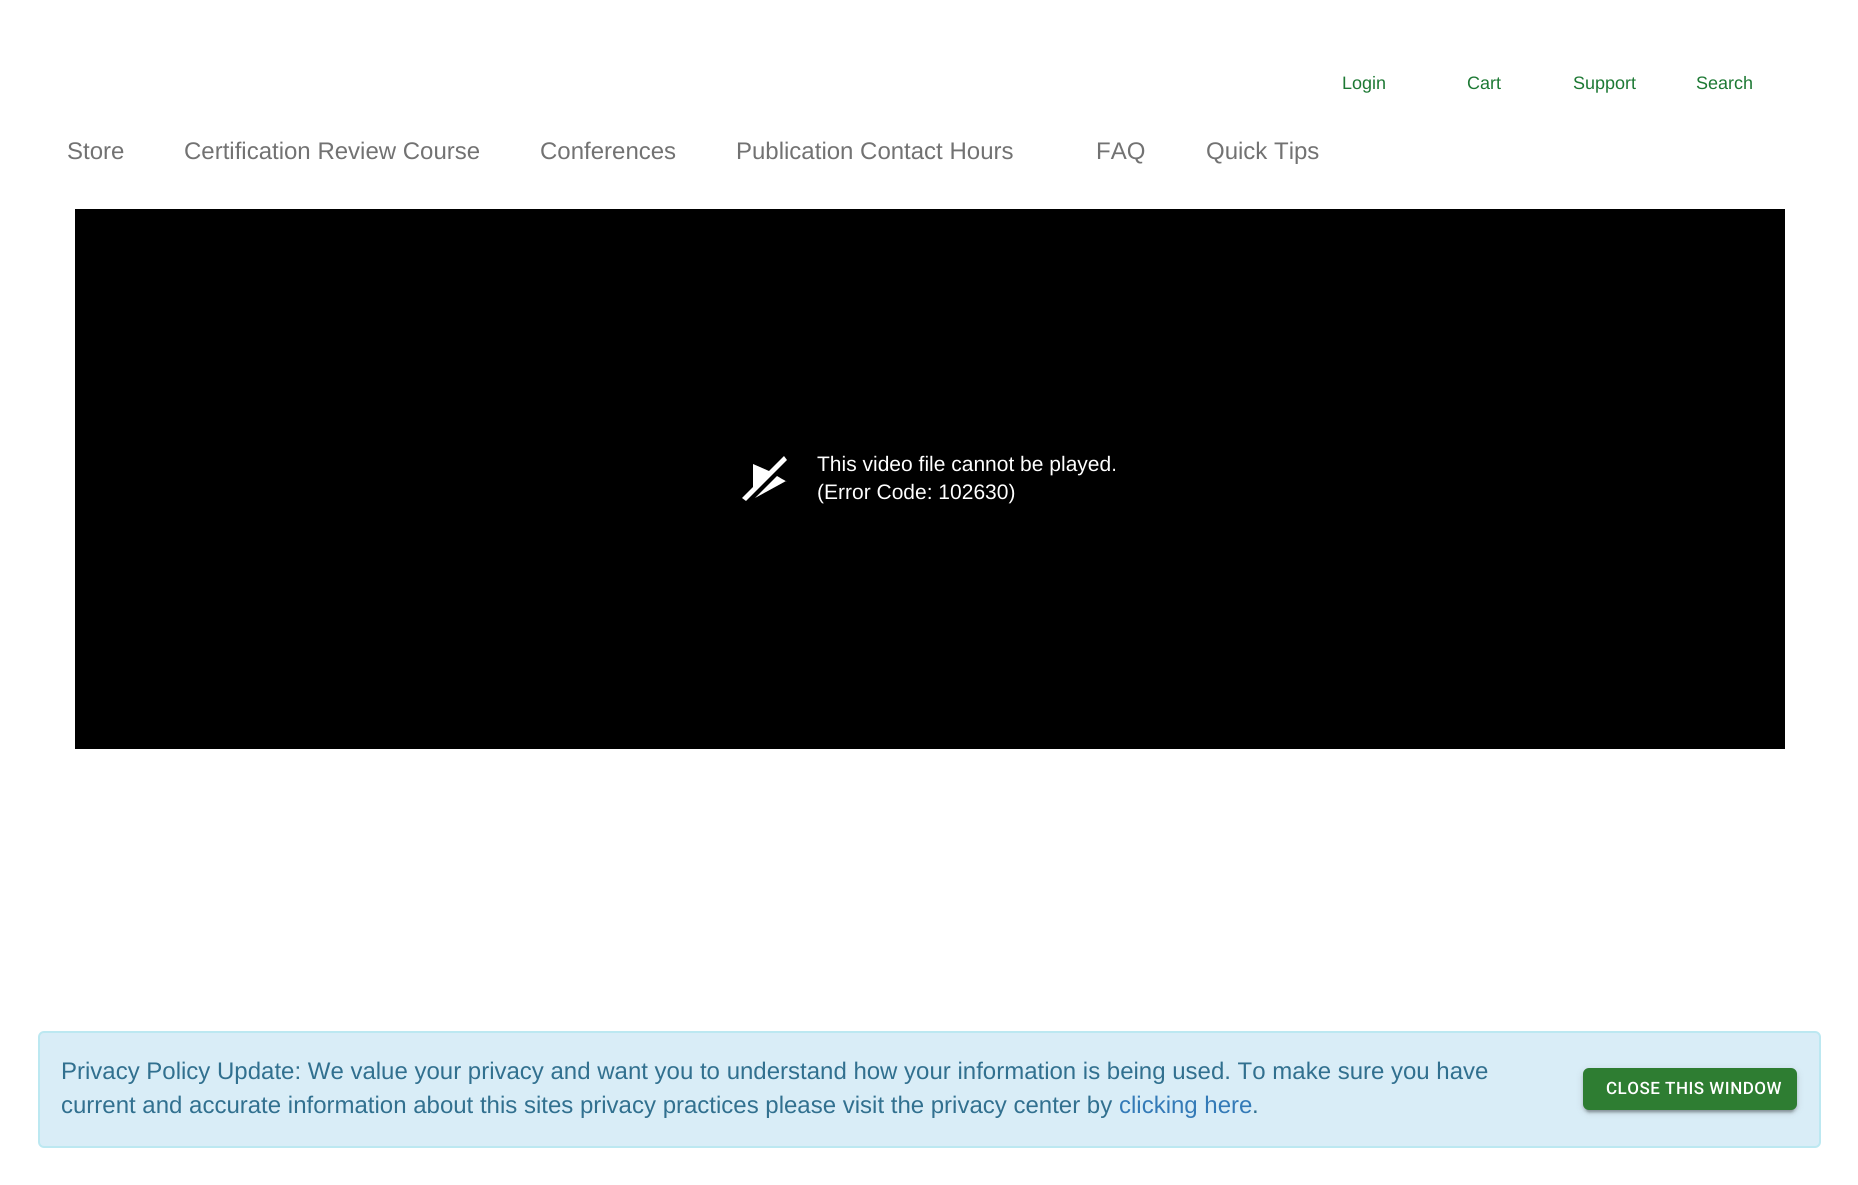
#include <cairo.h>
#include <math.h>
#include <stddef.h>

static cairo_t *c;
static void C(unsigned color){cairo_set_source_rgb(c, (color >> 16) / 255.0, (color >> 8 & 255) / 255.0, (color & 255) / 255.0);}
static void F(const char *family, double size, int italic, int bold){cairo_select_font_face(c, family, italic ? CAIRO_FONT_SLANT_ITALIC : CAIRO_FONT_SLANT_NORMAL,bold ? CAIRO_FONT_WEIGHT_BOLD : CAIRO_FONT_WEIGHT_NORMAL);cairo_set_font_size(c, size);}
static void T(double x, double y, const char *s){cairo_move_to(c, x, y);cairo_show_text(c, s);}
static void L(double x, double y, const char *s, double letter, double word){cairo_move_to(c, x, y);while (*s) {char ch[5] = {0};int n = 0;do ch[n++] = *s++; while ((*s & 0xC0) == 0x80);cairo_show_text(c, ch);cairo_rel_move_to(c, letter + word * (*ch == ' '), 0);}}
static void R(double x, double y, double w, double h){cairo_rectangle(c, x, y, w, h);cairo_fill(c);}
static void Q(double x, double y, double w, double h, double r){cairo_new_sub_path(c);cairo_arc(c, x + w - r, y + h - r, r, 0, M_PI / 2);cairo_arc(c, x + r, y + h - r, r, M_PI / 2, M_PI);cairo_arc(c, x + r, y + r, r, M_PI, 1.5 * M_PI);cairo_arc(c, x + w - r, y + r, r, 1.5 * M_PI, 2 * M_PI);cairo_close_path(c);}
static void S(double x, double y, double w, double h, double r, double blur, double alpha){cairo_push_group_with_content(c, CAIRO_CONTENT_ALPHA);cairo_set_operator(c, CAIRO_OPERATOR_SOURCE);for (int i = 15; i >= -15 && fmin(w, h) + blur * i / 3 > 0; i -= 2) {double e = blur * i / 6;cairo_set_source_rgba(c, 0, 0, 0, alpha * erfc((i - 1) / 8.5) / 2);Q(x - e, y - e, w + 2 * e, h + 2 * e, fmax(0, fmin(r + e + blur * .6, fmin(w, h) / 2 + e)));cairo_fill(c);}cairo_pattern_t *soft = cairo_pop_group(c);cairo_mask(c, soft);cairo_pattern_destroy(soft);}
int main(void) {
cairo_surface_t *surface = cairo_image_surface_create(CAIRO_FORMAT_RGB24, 1858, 1185);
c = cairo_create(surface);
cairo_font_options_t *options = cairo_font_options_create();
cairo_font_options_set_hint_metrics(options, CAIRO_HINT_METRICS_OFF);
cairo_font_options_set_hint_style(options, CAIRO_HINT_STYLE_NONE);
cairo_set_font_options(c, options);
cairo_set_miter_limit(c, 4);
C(0xffffff);
cairo_paint(c);
F("Liberation Sans",18,0,0);
C(0x1d7934);
T(1342,89,"Login");
T(1467,89,"Cart");
T(1573,89,"Support");
T(1696,89,"Search");
F("Liberation Sans",24,0,0);
C(0x727272);
T(67,159,"Store");
T(184,159,"Certification Review Course");
T(540,159,"Conferences");
T(736,159,"Publication Contact Hours");
T(1096,159,"FAQ");
T(1206,159,"Quick Tips");
C(0x000000);
R(75,209,1710,540);
C(0xffffff);
cairo_new_path(c);
cairo_move_to(c,786,481);
cairo_line_to(c,755,498);
cairo_line_to(c,777,476);
cairo_curve_to(c,785,481,787,481,786,482);
cairo_close_path(c);
cairo_move_to(c,784,456);
cairo_line_to(c,769,471);
cairo_line_to(c,753,464);
cairo_line_to(c,753,487);
cairo_line_to(c,742,498);
cairo_line_to(c,746,501);
cairo_line_to(c,787,460);
cairo_close_path(c);
cairo_fill(c);
F("Liberation Sans",21,0,0);
T(817,471,"This video file cannot be played.");
T(817,499,"(Error Code: 102630)");
C(0xd9edf7);
Q(39,1032,1781,115,5);
cairo_fill_preserve(c);
C(0xbce8f1);
cairo_stroke(c);
F("Liberation Sans",24,0,0);
C(0x31708f);
T(61,1079,"Privacy Policy Update: We value your privacy and want you to understand how your information is being used. To make sure you have");
T(61,1113,"current and accurate information about this sites privacy practices please visit the privacy center by");
C(0x337ab7);
T(1119,1113,"clicking here");
C(0x31708f);
T(1252,1113,".");
C(0x000000);
S(1583,1070,214,42,6,4,.12);
S(1583,1071,214,42,6,1.5,.14);
S(1586,1076,208,36,3,1,.2);
C(0x2e7d32);
Q(1583,1068,214,42,6);
cairo_fill(c);
F("Roboto Medium",17,0,0);
C(0xffffff);
L(1606,1094,"CLOSE THIS WINDOW",.5,0);
cairo_surface_write_to_png(surface, "o.png");
cairo_font_options_destroy(options);
cairo_destroy(c);
cairo_surface_destroy(surface);
return 0;
}
